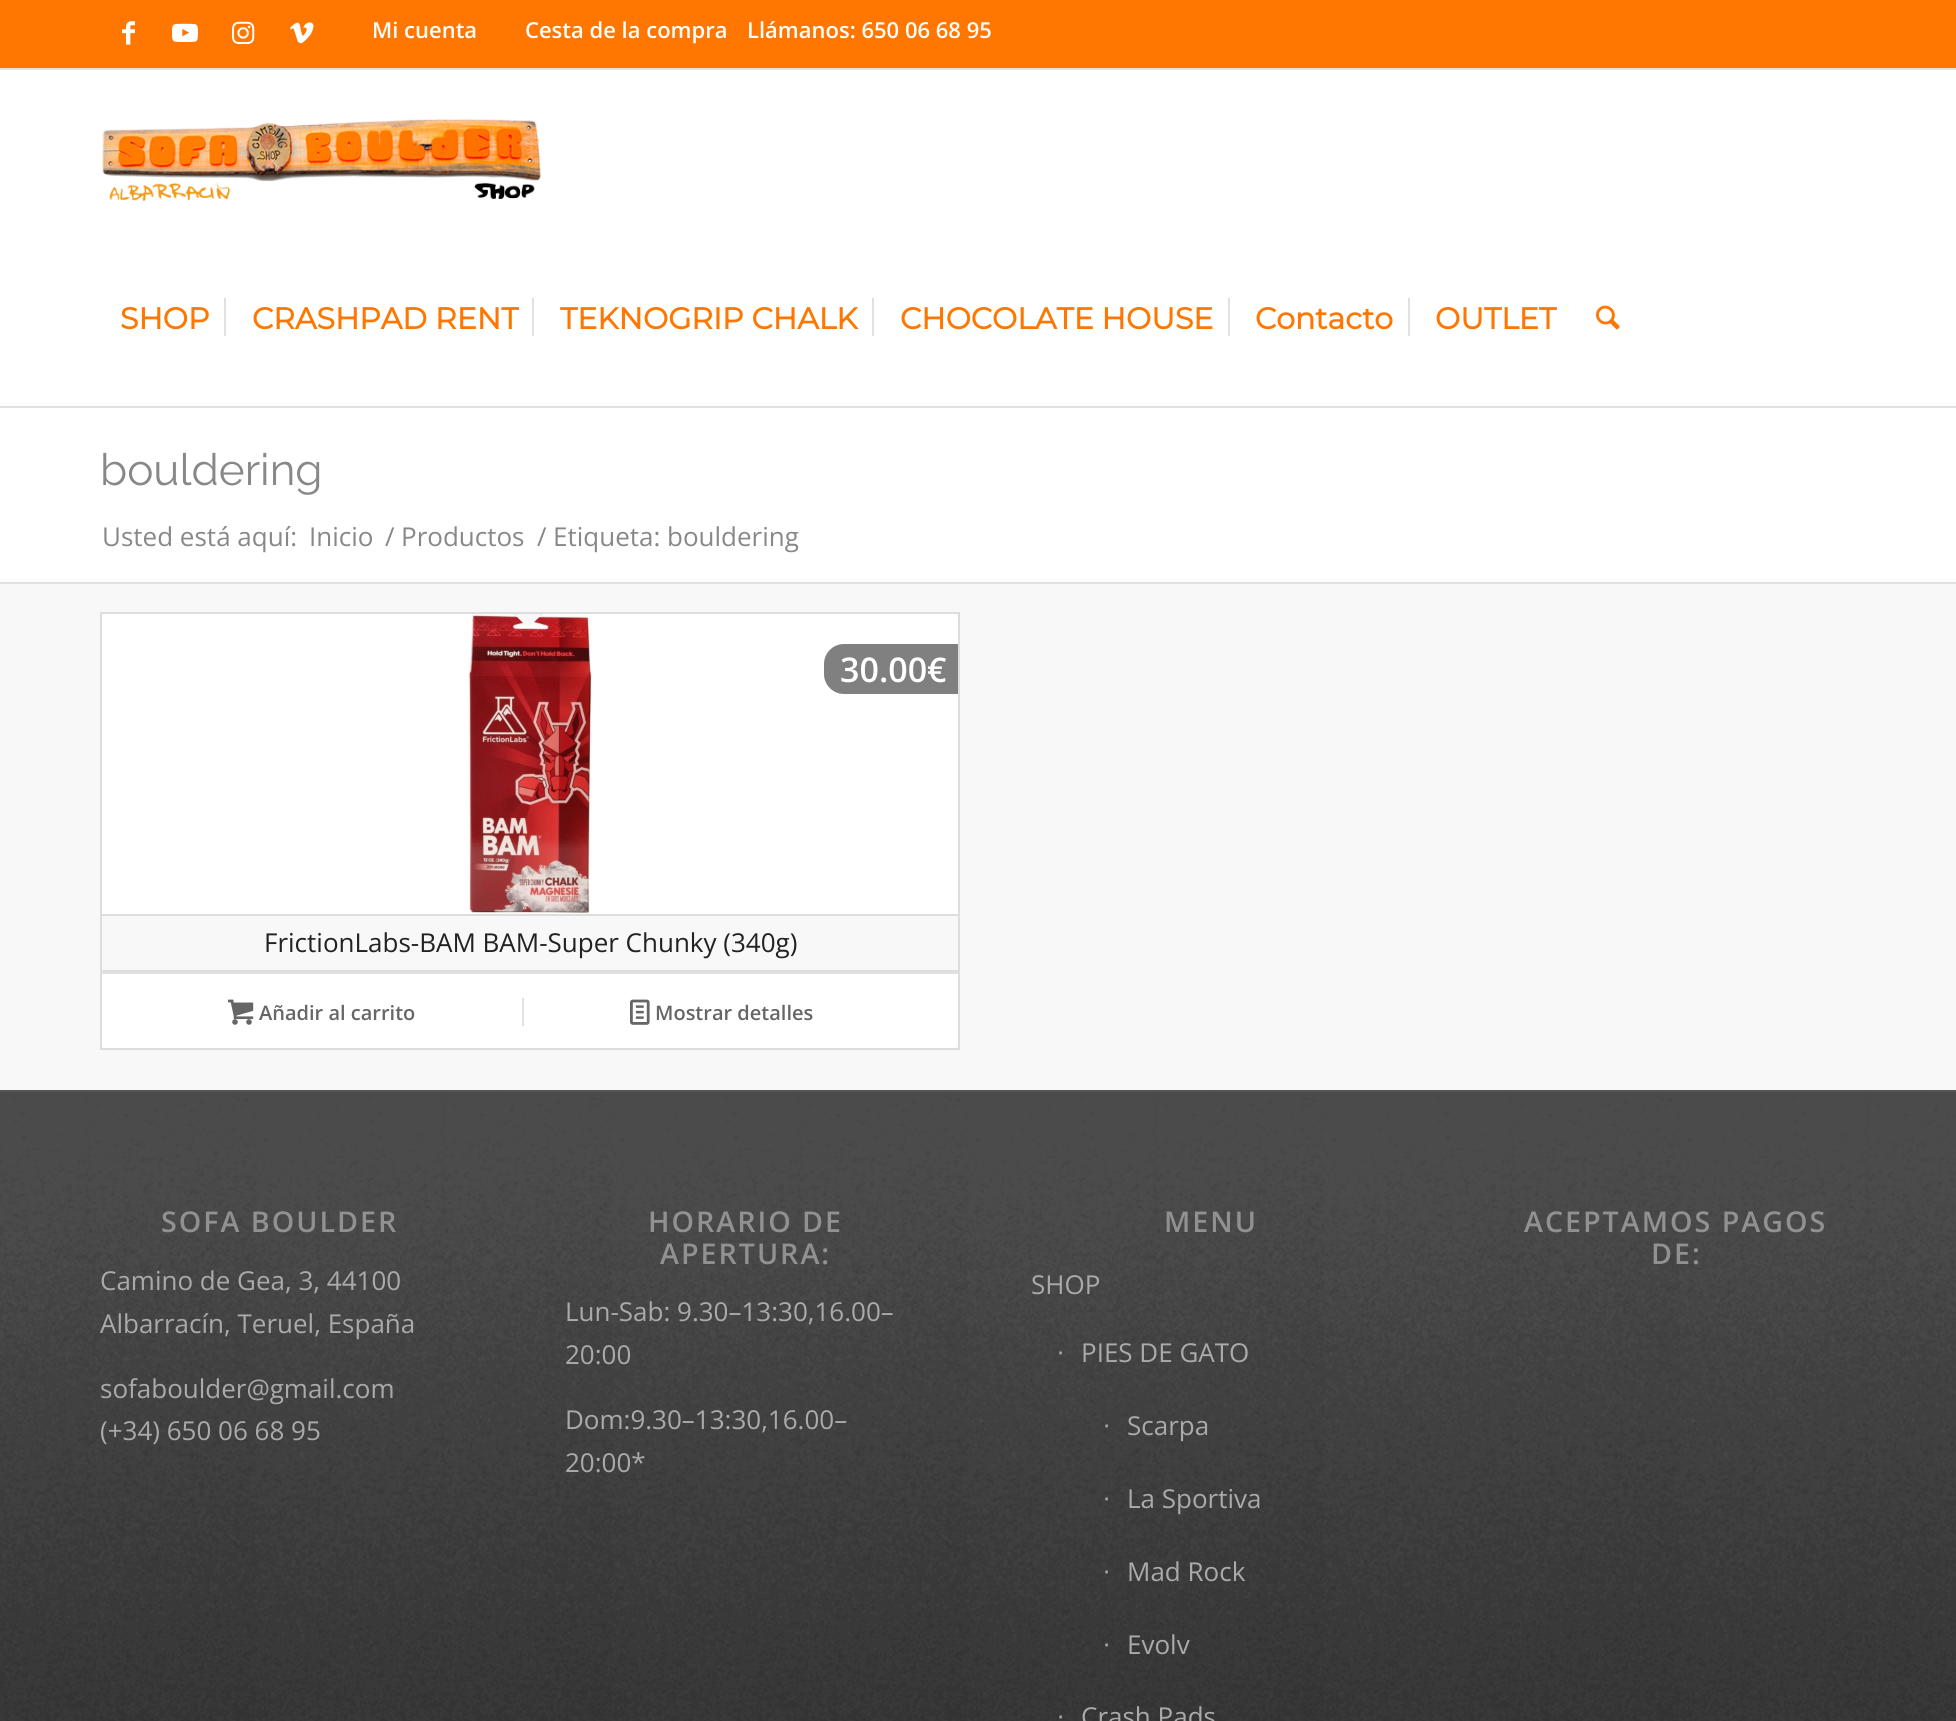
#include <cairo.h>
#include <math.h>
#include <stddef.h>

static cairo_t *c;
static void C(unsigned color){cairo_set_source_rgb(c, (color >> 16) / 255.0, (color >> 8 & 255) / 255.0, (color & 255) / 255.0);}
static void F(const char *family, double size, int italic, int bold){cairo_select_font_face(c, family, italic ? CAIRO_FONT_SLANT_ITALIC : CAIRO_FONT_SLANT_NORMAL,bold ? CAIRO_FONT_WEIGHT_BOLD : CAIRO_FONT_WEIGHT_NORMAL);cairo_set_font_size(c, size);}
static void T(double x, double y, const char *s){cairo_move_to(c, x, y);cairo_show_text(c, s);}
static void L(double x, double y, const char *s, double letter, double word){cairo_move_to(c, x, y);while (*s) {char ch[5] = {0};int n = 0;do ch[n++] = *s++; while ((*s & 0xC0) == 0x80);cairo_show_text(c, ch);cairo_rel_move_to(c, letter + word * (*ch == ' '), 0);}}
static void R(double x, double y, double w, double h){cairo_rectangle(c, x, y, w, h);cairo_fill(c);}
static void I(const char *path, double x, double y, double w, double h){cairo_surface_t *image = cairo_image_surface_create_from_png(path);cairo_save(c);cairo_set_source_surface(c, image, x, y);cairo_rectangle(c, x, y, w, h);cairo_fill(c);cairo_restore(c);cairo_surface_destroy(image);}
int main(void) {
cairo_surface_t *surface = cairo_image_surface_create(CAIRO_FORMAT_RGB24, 1956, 1721);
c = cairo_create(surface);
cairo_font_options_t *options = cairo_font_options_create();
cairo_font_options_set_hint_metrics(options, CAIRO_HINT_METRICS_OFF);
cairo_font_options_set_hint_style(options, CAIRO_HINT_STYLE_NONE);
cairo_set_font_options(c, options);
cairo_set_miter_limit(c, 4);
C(0xffffff);
cairo_paint(c);
C(0xff7700);
R(0,0,1956,68);
C(0xe1e1e1);
R(0,68,1956,2);
I("1.png",122,21,13,24);
I("2.png",172,23,26,20);
I("3.png",232,21,23,24);
I("4.png",290,22,24,22);
F("Open Sans SemiBold",22,0,0);
C(0xffffff);
T(372,38,"Mi cuenta");
T(525,38,"Cesta de la compra");
T(747,38,"Llámanos: 650 06 68 95");
C(0xe1e1e1);
R(0,406,1956,2);
I("5.png",102,119,439,82);
F("Montserrat",30,0,1);
C(0xff7700);
T(120,329,"SHOP");
T(252,329,"CRASHPAD RENT");
C(0xe1e1e1);
R(224,298,2,38);
C(0xff7700);
T(560,329,"TEKNOGRIP CHALK");
C(0xe1e1e1);
R(532,298,2,38);
C(0xff7700);
T(900,329,"CHOCOLATE HOUSE");
C(0xe1e1e1);
R(872,298,2,38);
C(0xff7700);
T(1255,329,"Contacto");
C(0xe1e1e1);
R(1228,298,2,38);
C(0xff7700);
T(1435,329,"OUTLET");
C(0xe1e1e1);
R(1408,298,2,38);
I("6.png",1596,305,24,25);
F("Raleway Thin",44,0,0);
C(0x888888);
T(100,485,"bouldering");
F("Open Sans",26,0,0);
T(102,546,"Usted está aquí:");
T(309,546,"Inicio");
T(385,546,"/");
T(401,546,"Productos");
T(537,546,"/");
T(553,546,"Etiqueta: bouldering");
C(0xf8f8f8);
R(0,584,1956,506);
C(0xe1e1e1);
R(0,582,1956,2);
cairo_rectangle(c,101,613,858,436);
C(0xdddddd);
cairo_stroke(c);
C(0xffffff);
cairo_new_path(c);
cairo_move_to(c,106,614);
cairo_line_to(c,954,614);
cairo_curve_to(c,956,614,958,616,958,618);
cairo_line_to(c,958,914);
cairo_line_to(c,102,914);
cairo_line_to(c,102,618);
cairo_curve_to(c,102,616,104,614,106,614);
cairo_close_path(c);
cairo_fill(c);
I("7.png",468,614,124,300);
C(0xdddddd);
R(102,914,856,2);
cairo_new_path(c);
cairo_move_to(c,102,970);
cairo_line_to(c,958,970);
cairo_curve_to(c,958,971,957,972,956,972);
cairo_line_to(c,104,972);
cairo_curve_to(c,103,972,102,971,102,970);
cairo_close_path(c);
cairo_fill(c);
cairo_save(c);
cairo_rectangle(c,102,614,856,434);
cairo_clip(c);
C(0xf8f8f8);
cairo_new_path(c);
cairo_move_to(c,528,600);
cairo_line_to(c,542.5,614);
cairo_line_to(c,528,628);
cairo_line_to(c,514,614);
cairo_close_path(c);
cairo_fill(c);
C(0xe1e1e1);
cairo_new_path(c);
cairo_move_to(c,528,600);
cairo_line_to(c,542.5,614);
cairo_line_to(c,541,615.5);
cairo_line_to(c,527,601.5);
cairo_close_path(c);
cairo_move_to(c,528,600);
cairo_line_to(c,529.5,601.5);
cairo_line_to(c,515.5,615.5);
cairo_line_to(c,514,614);
cairo_close_path(c);
cairo_fill(c);
cairo_restore(c);
C(0x808080);
cairo_new_path(c);
cairo_move_to(c,844,644);
cairo_line_to(c,958,644);
cairo_line_to(c,958,694);
cairo_line_to(c,844,694);
cairo_curve_to(c,833,694,824,685,824,674);
cairo_line_to(c,824,664);
cairo_curve_to(c,824,653,833,644,844,644);
cairo_close_path(c);
cairo_fill(c);
F("Open Sans SemiBold",34,0,0);
C(0xffffff);
T(840,682,"30.00€");
F("Open Sans",26,0,0);
C(0x222222);
T(264,952,"FrictionLabs-BAM BAM-Super Chunky (340g)");
C(0xffffff);
cairo_new_path(c);
cairo_move_to(c,102,972);
cairo_line_to(c,958,972);
cairo_line_to(c,958,1044);
cairo_curve_to(c,958,1046,956,1048,954,1048);
cairo_line_to(c,106,1048);
cairo_curve_to(c,104,1048,102,1046,102,1044);
cairo_close_path(c);
cairo_fill(c);
C(0xe1e1e1);
R(102,972,856,2);
I("8.png",228,999,26,26);
F("Open Sans SemiBold",20,0,0);
C(0x666666);
T(259,1020,"Añadir al carrito");
C(0xe1e1e1);
R(522,998,2,28);
I("9.png",630,999,20,26);
C(0x666666);
T(655,1020,"Mostrar detalles");
C(0x333333);
R(0,1092,1956,629);
I("10.png",0,1092,1956,629);
C(0x555555);
R(0,1090,1956,2);
F("Open Sans SemiBold",28.6,0,0);
C(0x919191);
L(161,1232,"SOFA BOULDER",2,0);
F("Open Sans",26,0,0);
C(0xaaaaaa);
T(100,1290,"Camino de Gea, 3, 44100");
T(100,1333,"Albarracín, Teruel, España");
T(100,1398,"sofaboulder@gmail.com");
T(100,1440,"(+34) 650 06 68 95");
F("Open Sans SemiBold",28.6,0,0);
C(0x919191);
L(648,1232,"HORARIO DE",2,0);
L(660,1264,"APERTURA:",2,0);
F("Open Sans",26,0,0);
C(0xaaaaaa);
T(565,1321,"Lun-Sab: 9.30–13:30,16.00–");
T(565,1364,"20:00");
T(565,1429,"Dom:9.30–13:30,16.00–");
T(565,1472,"20:00*");
F("Open Sans SemiBold",28.6,0,0);
C(0x919191);
L(1164,1232,"MENU",2,0);
F("Open Sans",26,0,0);
C(0xaaaaaa);
T(1031,1294,"SHOP");
F("Liberation Sans",26,0,0);
T(1057,1360,"∙");
F("Open Sans",26,0,0);
T(1081,1362,"PIES DE GATO");
F("Liberation Sans",26,0,0);
T(1103,1433,"∙");
F("Open Sans",26,0,0);
T(1127,1435,"Scarpa");
F("Liberation Sans",26,0,0);
T(1103,1506,"∙");
F("Open Sans",26,0,0);
T(1127,1508,"La Sportiva");
F("Liberation Sans",26,0,0);
T(1103,1579,"∙");
F("Open Sans",26,0,0);
T(1127,1581,"Mad Rock");
F("Liberation Sans",26,0,0);
T(1103,1652,"∙");
F("Open Sans",26,0,0);
T(1127,1654,"Evolv");
F("Liberation Sans",26,0,0);
T(1057,1724,"∙");
F("Open Sans",26,0,0);
T(1081,1726,"Crash Pads");
F("Open Sans SemiBold",28.6,0,0);
C(0x919191);
L(1524,1232,"ACEPTAMOS PAGOS",2,0);
L(1651,1264,"DE:",2,0);
cairo_surface_write_to_png(surface, "o.png");
cairo_font_options_destroy(options);
cairo_destroy(c);
cairo_surface_destroy(surface);
return 0;
}
